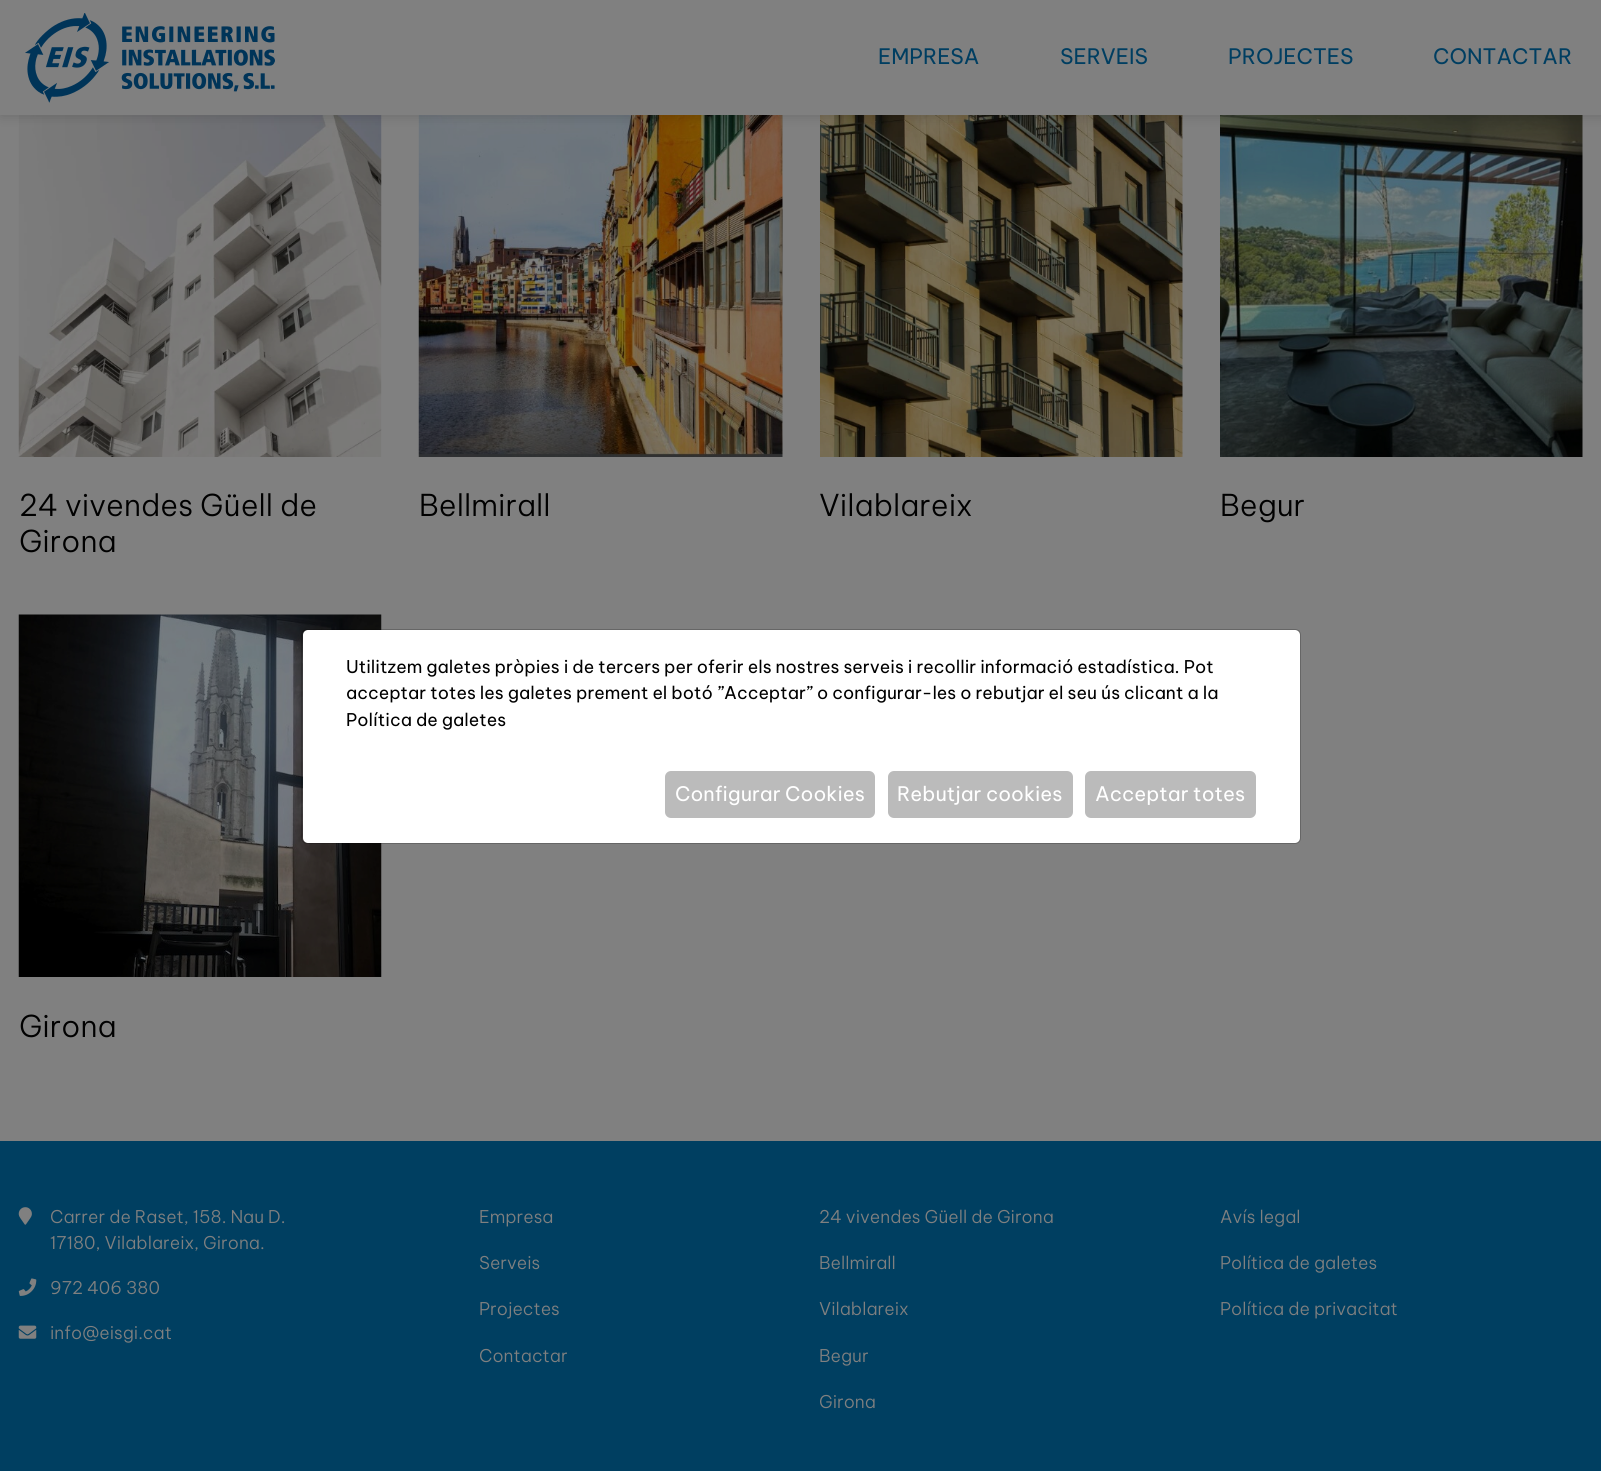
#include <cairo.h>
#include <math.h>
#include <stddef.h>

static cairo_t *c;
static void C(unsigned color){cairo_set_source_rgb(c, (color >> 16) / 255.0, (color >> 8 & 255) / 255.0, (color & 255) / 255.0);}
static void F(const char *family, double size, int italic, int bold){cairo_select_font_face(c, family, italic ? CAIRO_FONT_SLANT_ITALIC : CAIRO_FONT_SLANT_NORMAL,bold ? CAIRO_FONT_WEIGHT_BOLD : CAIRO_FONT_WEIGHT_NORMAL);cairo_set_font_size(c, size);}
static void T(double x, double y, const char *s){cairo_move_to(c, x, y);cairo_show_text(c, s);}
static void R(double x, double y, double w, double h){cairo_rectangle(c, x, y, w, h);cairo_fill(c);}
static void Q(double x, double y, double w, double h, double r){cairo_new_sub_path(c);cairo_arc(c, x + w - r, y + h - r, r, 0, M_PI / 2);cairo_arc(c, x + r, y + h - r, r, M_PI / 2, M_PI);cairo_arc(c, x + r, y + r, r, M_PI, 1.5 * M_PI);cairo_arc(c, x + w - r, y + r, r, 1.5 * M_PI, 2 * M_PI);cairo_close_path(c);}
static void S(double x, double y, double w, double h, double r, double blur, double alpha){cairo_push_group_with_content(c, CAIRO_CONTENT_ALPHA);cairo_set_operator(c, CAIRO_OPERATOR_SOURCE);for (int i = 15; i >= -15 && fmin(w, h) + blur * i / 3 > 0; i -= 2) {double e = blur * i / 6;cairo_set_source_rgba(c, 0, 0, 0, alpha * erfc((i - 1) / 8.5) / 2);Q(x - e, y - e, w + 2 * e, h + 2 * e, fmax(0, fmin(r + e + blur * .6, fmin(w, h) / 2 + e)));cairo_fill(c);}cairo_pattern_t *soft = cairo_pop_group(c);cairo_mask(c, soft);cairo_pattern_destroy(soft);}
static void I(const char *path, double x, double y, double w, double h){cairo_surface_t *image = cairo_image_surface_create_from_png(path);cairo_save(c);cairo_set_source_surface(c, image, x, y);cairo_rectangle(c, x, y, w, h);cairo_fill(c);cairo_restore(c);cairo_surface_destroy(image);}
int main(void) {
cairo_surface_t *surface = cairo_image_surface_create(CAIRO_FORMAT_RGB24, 1601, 1471);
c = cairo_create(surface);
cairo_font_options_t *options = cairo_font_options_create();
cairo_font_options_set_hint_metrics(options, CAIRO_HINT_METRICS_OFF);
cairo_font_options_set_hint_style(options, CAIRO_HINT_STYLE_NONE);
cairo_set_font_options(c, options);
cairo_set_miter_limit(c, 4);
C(0x808080);
cairo_paint(c);
I("2.png",18,115,364,342);
I("3.png",418,115,365,342);
I("4.png",820,115,363,342);
I("5.png",1220,115,363,342);
C(0x000000);
S(1,1,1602,115,0,6,.15);
C(0x808080);
R(0,0,1601,115);
I("1.png",25,13,250,90);
F("Be Vietnam Pro",21.25,0,0);
C(0x003e61);
T(878,64,"EMPRESA");
T(1060,64,"SERVEIS");
T(1228,64,"PROJECTES");
T(1433,64,"CONTACTAR");
F("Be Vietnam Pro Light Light",30,0,0);
C(0x000000);
T(19,516,"24 vivendes Güell de");
T(19,552,"Girona");
T(419,516,"Bellmirall");
T(819,516,"Vilablareix");
T(1220,516,"Begur");
I("6.png",18,614,364,363);
T(19,1037,"Girona");
C(0xffffff);
Q(303,630,997,213,5);
cairo_fill(c);
Q(301.5,629.5,999,214,5.5);
cairo_set_source_rgba(c,0,0,0,0.2);
cairo_set_line_width(c,1);
cairo_stroke(c);
F("Be Vietnam Pro",17.5,0,0);
C(0x000000);
T(346,673,"Utilitzem galetes pròpies i de tercers per oferir els nostres serveis i recollir informació estadística. Pot");
T(346,699,"acceptar totes les galetes prement el botó ”Acceptar” o configurar-les o rebutjar el seu ús clicant a la");
T(346,726,"Política de galetes");
C(0xbbbbbb);
Q(665,771,210,47,6);
cairo_fill(c);
F("Be Vietnam Pro",20,0,0);
C(0xffffff);
T(675,801,"Configurar Cookies");
C(0xbbbbbb);
Q(888,771,185,47,6);
cairo_fill(c);
C(0xffffff);
T(897,801,"Rebutjar cookies");
C(0xbbbbbb);
Q(1085,771,171,47,6);
cairo_fill(c);
C(0xffffff);
T(1095,801,"Acceptar totes");
C(0x003f61);
R(0,1141,1601,330);
I("7.png",18,1207,14,18);
F("Be Vietnam Pro Light Light",17.5,0,0);
C(0x808080);
T(50,1223,"Carrer de Raset, 158. Nau D.");
T(50,1249,"17180, Vilablareix, Girona.");
I("8.png",18,1278,19,18);
T(50,1294,"972 406 380");
I("9.png",18,1325,19,14);
T(50,1339,"info@eisgi.cat");
T(479,1223,"Empresa");
T(479,1269,"Serveis");
T(479,1315,"Projectes");
T(479,1362,"Contactar");
T(819,1223,"24 vivendes Güell de Girona");
T(819,1269,"Bellmirall");
T(819,1315,"Vilablareix");
T(819,1362,"Begur");
T(819,1408,"Girona");
T(1220,1223,"Avís legal");
T(1220,1269,"Política de galetes");
T(1220,1315,"Política de privacitat");
cairo_surface_write_to_png(surface, "o.png");
cairo_font_options_destroy(options);
cairo_destroy(c);
cairo_surface_destroy(surface);
return 0;
}
